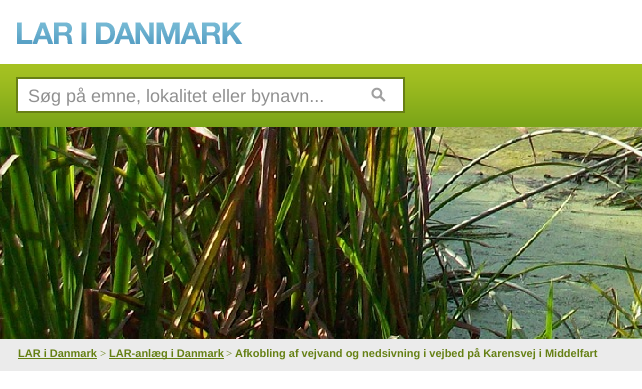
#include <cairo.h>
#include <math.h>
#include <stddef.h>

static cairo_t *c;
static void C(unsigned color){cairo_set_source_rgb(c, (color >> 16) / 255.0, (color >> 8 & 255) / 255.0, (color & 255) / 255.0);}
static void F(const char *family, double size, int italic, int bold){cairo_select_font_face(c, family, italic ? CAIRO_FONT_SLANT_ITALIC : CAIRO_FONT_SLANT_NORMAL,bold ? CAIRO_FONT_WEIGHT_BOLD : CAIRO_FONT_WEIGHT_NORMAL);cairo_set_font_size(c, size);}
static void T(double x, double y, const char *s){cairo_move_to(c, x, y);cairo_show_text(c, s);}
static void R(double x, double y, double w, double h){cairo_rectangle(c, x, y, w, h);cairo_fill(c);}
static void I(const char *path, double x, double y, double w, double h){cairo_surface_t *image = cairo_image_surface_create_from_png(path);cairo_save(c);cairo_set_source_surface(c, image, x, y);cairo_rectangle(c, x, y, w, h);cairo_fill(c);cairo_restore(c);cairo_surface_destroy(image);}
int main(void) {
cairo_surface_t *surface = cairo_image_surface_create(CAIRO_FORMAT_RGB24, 642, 389);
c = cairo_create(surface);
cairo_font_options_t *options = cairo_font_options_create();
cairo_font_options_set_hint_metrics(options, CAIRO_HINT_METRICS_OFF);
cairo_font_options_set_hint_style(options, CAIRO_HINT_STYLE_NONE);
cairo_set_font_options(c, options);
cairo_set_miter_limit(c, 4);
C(0xffffff);
cairo_paint(c);
I("1.png",0,127,642,212);
I("2.png",17,22,226,22);
I("3.png",0,64,642,63);
C(0xffffff);
cairo_rectangle(c,17,78,387,34);
cairo_fill_preserve(c);
C(0x687f15);
cairo_stroke(c);
F("Liberation Sans",18,0,0);
C(0x909090);
T(28,102,"Søg på emne, lokalitet eller bynavn...");
I("4.png",371,87,15,15);
C(0xebebeb);
R(0,339,642,32);
F("Liberation Sans",11,0,1);
C(0x658014);
T(18,357,"LAR i Danmark");
R(18,358,79,1);
F("Liberation Serif",11,0,0);
T(100,357,">");
R(109,358,115,1);
F("Liberation Sans",11,0,1);
T(109,357,"LAR-anlæg i Danmark");
F("Liberation Serif",11,0,0);
T(226,357,">");
F("Liberation Sans",11,0,1);
T(235,357,"Afkobling af vejvand og nedsivning i vejbed på Karensvej i Middelfart");
cairo_surface_write_to_png(surface, "o.png");
cairo_font_options_destroy(options);
cairo_destroy(c);
cairo_surface_destroy(surface);
return 0;
}
